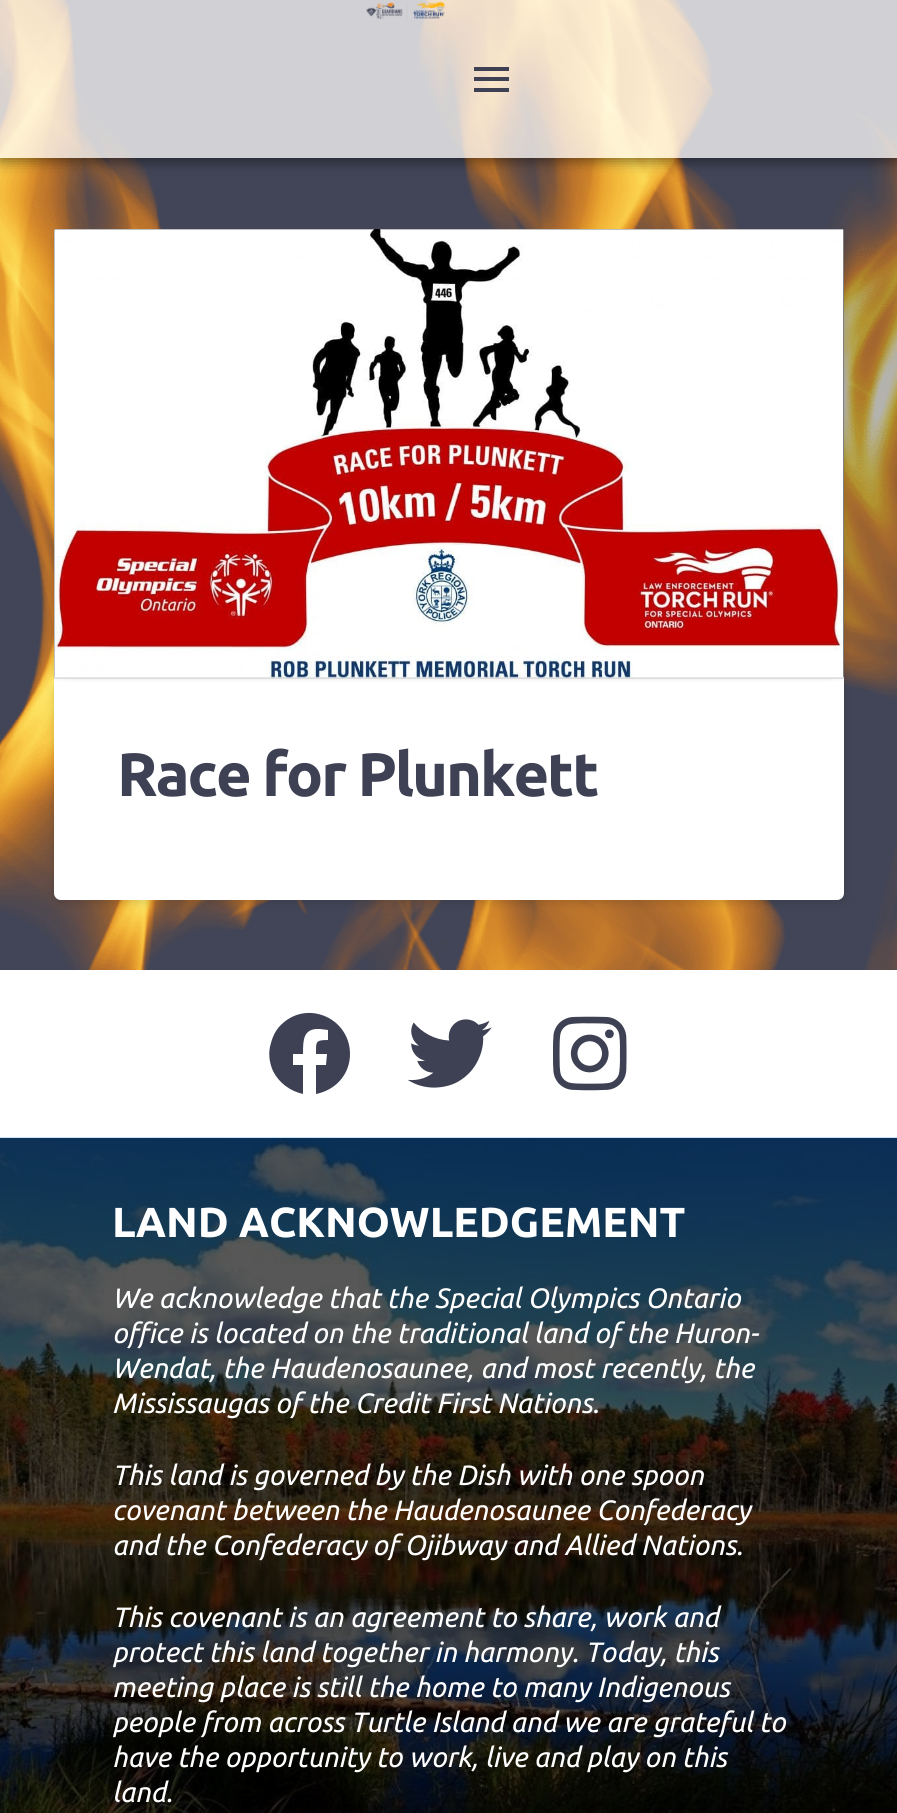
#include <cairo.h>
#include <math.h>
#include <stddef.h>

static cairo_t *c;
static void C(unsigned color){cairo_set_source_rgb(c, (color >> 16) / 255.0, (color >> 8 & 255) / 255.0, (color & 255) / 255.0);}
static void F(const char *family, double size, int italic, int bold){cairo_select_font_face(c, family, italic ? CAIRO_FONT_SLANT_ITALIC : CAIRO_FONT_SLANT_NORMAL,bold ? CAIRO_FONT_WEIGHT_BOLD : CAIRO_FONT_WEIGHT_NORMAL);cairo_set_font_size(c, size);}
static void T(double x, double y, const char *s){cairo_move_to(c, x, y);cairo_show_text(c, s);}
static void L(double x, double y, const char *s, double letter, double word){cairo_move_to(c, x, y);while (*s) {char ch[5] = {0};int n = 0;do ch[n++] = *s++; while ((*s & 0xC0) == 0x80);cairo_show_text(c, ch);cairo_rel_move_to(c, letter + word * (*ch == ' '), 0);}}
static void R(double x, double y, double w, double h){cairo_rectangle(c, x, y, w, h);cairo_fill(c);}
static void Q(double x, double y, double w, double h, double r){cairo_new_sub_path(c);cairo_arc(c, x + w - r, y + h - r, r, 0, M_PI / 2);cairo_arc(c, x + r, y + h - r, r, M_PI / 2, M_PI);cairo_arc(c, x + r, y + r, r, M_PI, 1.5 * M_PI);cairo_arc(c, x + w - r, y + r, r, 1.5 * M_PI, 2 * M_PI);cairo_close_path(c);}
static void S(double x, double y, double w, double h, double r, double blur, double alpha){cairo_push_group_with_content(c, CAIRO_CONTENT_ALPHA);cairo_set_operator(c, CAIRO_OPERATOR_SOURCE);for (int i = 15; i >= -15 && fmin(w, h) + blur * i / 3 > 0; i -= 2) {double e = blur * i / 6;cairo_set_source_rgba(c, 0, 0, 0, alpha * erfc((i - 1) / 8.5) / 2);Q(x - e, y - e, w + 2 * e, h + 2 * e, fmax(0, fmin(r + e + blur * .6, fmin(w, h) / 2 + e)));cairo_fill(c);}cairo_pattern_t *soft = cairo_pop_group(c);cairo_mask(c, soft);cairo_pattern_destroy(soft);}
static void I(const char *path, double x, double y, double w, double h){cairo_surface_t *image = cairo_image_surface_create_from_png(path);cairo_save(c);cairo_set_source_surface(c, image, x, y);cairo_rectangle(c, x, y, w, h);cairo_fill(c);cairo_restore(c);cairo_surface_destroy(image);}
int main(void) {
cairo_surface_t *surface = cairo_image_surface_create(CAIRO_FORMAT_RGB24, 897, 1813);
c = cairo_create(surface);
cairo_font_options_t *options = cairo_font_options_create();
cairo_font_options_set_hint_metrics(options, CAIRO_HINT_METRICS_OFF);
cairo_font_options_set_hint_style(options, CAIRO_HINT_STYLE_NONE);
cairo_set_font_options(c, options);
cairo_set_miter_limit(c, 4);
C(0xffffff);
cairo_paint(c);
I("1.png",0,0,897,970);
cairo_save(c);
cairo_set_fill_rule(c,CAIRO_FILL_RULE_EVEN_ODD);
cairo_new_path(c);
cairo_move_to(c,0,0);
cairo_line_to(c,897,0);
cairo_line_to(c,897,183);
cairo_line_to(c,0,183);
cairo_close_path(c);
cairo_move_to(c,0,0);
cairo_line_to(c,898,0);
cairo_line_to(c,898,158);
cairo_line_to(c,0,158);
cairo_close_path(c);
cairo_clip(c);
C(0x000000);
S(0,4,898,157,0,7,.5);
cairo_restore(c);
cairo_set_source_rgba(c,1,1,1,0.75);
R(0,0,897,158);
I("2.png",366,1,79,19);
C(0x3e4154);
R(474,67,35,4);
R(474,77,35,4);
R(474,88,35,4);
C(0x000000);
S(54,683,790,220,7,4.5,.13);
C(0xffffff);
cairo_new_path(c);
cairo_move_to(c,54,679);
cairo_line_to(c,844,679);
cairo_line_to(c,844,893);
cairo_curve_to(c,844,897,841,900,837,900);
cairo_line_to(c,61,900);
cairo_curve_to(c,57,900,54,897,54,893);
cairo_close_path(c);
cairo_fill(c);
C(0x000000);
S(54,240,776,436,0,3.5,.13);
S(68,240,776,436,0,3.5,.13);
C(0xdddddd);
R(54,677,790,2);
C(0x000000);
R(54,229,790,448);
I("3.png",54,229,790,449);
F("Ubuntu",61.25,0,1);
C(0x3e4154);
L(117,796,"Race for Plunkett",-2.1,0);
cairo_new_path(c);
cairo_move_to(c,350,1054);
cairo_curve_to(c,350,1019,309,1000,283,1023);
cairo_curve_to(c,277,1028,273,1035,271,1043);
cairo_curve_to(c,268,1052,269,1062,273,1071);
cairo_curve_to(c,279,1083,290,1091,303,1094);
cairo_line_to(c,303,1065);
cairo_line_to(c,293,1065);
cairo_line_to(c,293,1054);
cairo_line_to(c,303,1054);
cairo_curve_to(c,303,1040,303,1028,320,1029);
cairo_line_to(c,328,1030);
cairo_line_to(c,328,1040);
cairo_curve_to(c,315,1040,316,1042,316,1054);
cairo_line_to(c,327,1054);
cairo_line_to(c,326,1065);
cairo_line_to(c,316,1065);
cairo_line_to(c,316,1094);
cairo_curve_to(c,336,1090,350,1074,350,1054);
cairo_close_path(c);
cairo_fill(c);
I("4.png",408,1019,84,69);
I("5.png",553,1016,74,75);
I("6.png",0,1137,897,676);
F("Ubuntu",42,0,1);
C(0xffffff);
T(112,1237,"LAND ACKNOWLEDGEMENT");
F("Ubuntu",28,1,0);
T(112,1308,"We acknowledge that the Special Olympics Ontario");
T(112,1343,"office is located on the traditional land of the Huron-");
T(112,1378,"Wendat, the Haudenosaunee, and most recently, the");
T(112,1413,"Mississaugas of the Credit First Nations.");
T(112,1485,"This land is governed by the Dish with one spoon");
T(112,1520,"covenant between the Haudenosaunee Confederacy");
T(112,1555,"and the Confederacy of Ojibway and Allied Nations.");
T(112,1627,"This covenant is an agreement to share, work and");
T(112,1662,"protect this land together in harmony. Today, this");
T(112,1697,"meeting place is still the home to many Indigenous");
T(112,1732,"people from across Turtle Island and we are grateful to");
T(112,1767,"have the opportunity to work, live and play on this");
T(112,1802,"land.");
cairo_surface_write_to_png(surface, "o.png");
cairo_font_options_destroy(options);
cairo_destroy(c);
cairo_surface_destroy(surface);
return 0;
}
